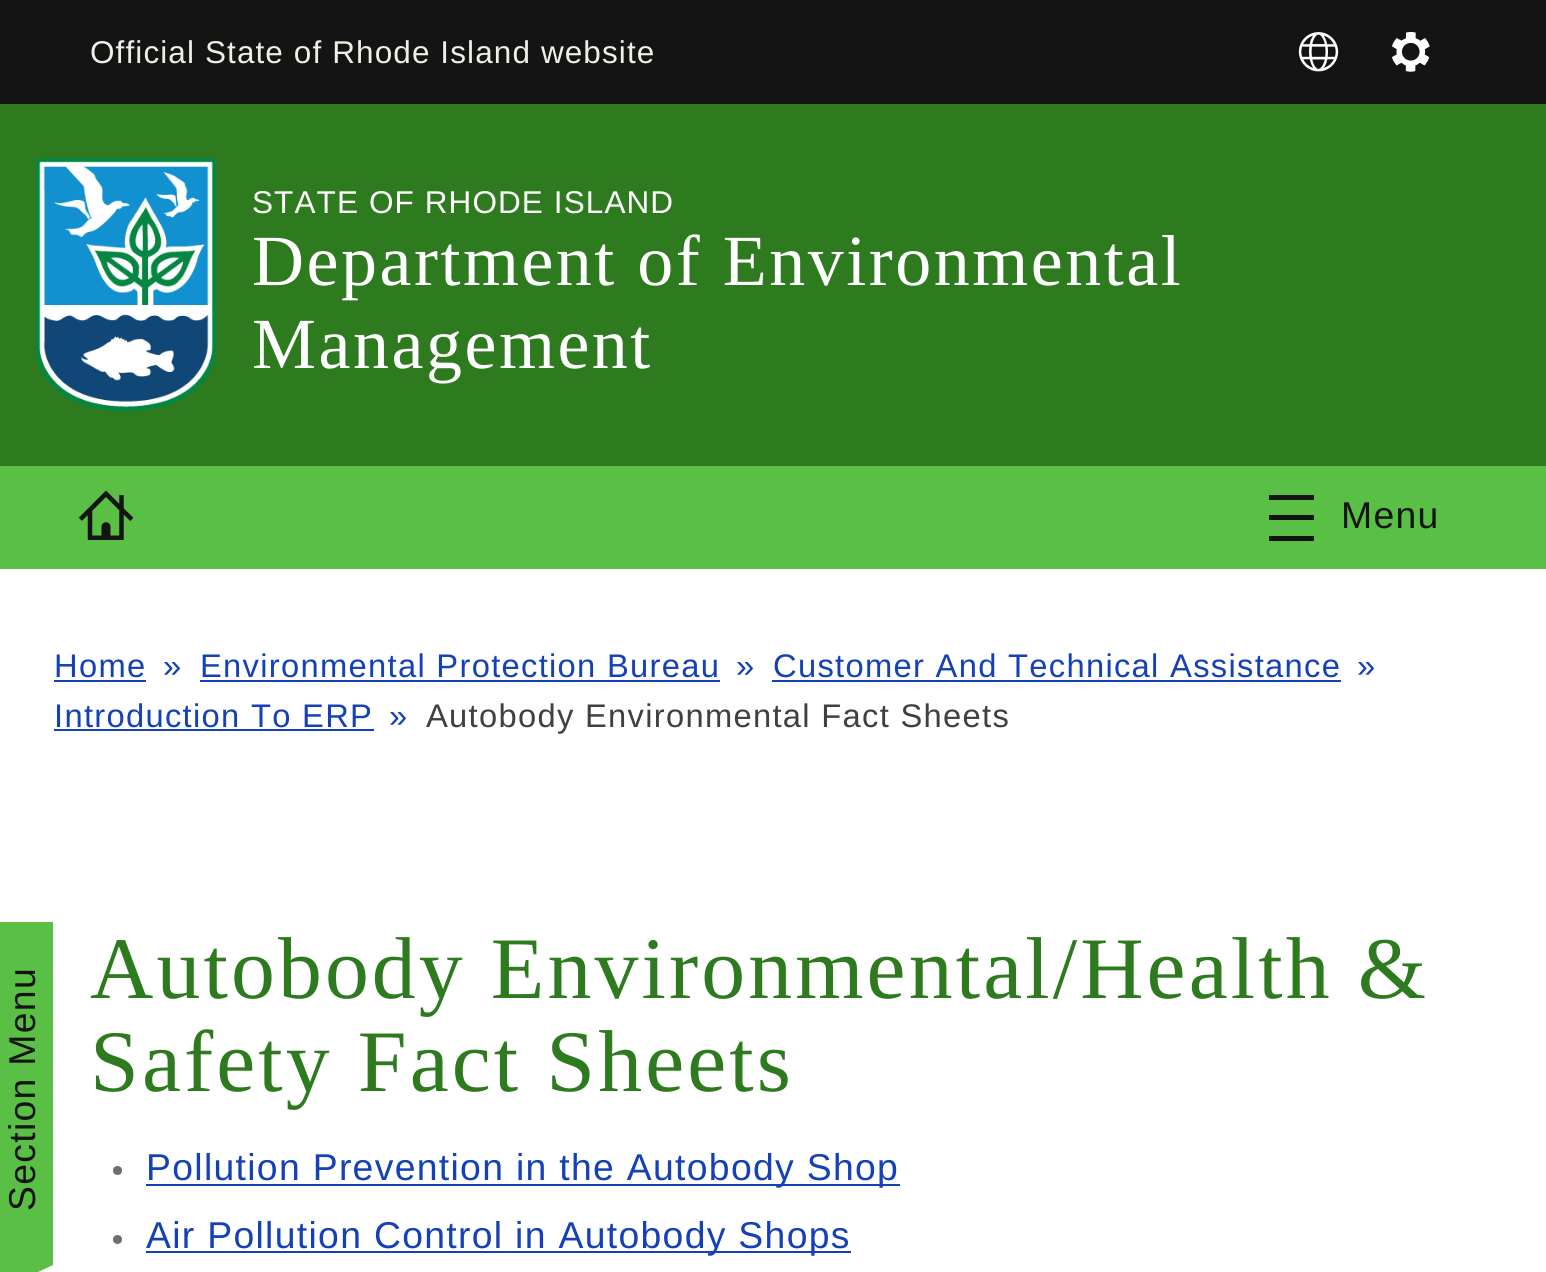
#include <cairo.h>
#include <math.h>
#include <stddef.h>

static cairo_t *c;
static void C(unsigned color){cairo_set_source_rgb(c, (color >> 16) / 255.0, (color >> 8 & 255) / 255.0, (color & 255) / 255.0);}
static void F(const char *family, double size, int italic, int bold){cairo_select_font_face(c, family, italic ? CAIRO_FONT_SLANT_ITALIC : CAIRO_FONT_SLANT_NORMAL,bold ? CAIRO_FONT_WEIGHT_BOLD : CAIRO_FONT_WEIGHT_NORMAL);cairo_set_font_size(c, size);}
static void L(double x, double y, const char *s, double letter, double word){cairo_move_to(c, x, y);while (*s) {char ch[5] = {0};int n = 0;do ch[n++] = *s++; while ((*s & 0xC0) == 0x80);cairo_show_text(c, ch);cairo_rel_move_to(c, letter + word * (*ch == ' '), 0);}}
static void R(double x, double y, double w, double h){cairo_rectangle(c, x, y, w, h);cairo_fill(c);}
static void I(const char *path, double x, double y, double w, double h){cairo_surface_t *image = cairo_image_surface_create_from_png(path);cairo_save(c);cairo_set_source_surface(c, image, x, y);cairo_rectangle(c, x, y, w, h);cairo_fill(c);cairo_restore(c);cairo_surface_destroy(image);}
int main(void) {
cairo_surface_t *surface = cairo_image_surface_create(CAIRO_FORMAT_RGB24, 1546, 1272);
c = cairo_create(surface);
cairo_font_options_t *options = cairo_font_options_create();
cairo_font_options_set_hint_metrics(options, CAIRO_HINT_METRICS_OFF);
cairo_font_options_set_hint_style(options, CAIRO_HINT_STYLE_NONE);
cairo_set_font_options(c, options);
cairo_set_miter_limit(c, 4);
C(0xffffff);
cairo_paint(c);
C(0x2e7a1f);
R(0,104,1546,362);
C(0x141414);
R(0,0,1546,104);
F("Liberation Sans",31.5,0,0);
C(0xf0eee5);
L(90,63,"Official State of Rhode Island website",1.1,0);
I("1.png",1298,32,41,40);
I("2.png",1392,31,38,41);
I("3.png",36,157,180,255);
C(0xffffff);
L(252,213,"STATE OF RHODE ISLAND",1.1,0);
F("Liberation Serif",72,0,0);
L(252,285,"Department of Environmental",2.5,0);
L(252,368,"Management",2.5,0);
C(0x59bf45);
R(0,466,1546,103);
I("4.png",78,490,56,50);
C(0x141414);
R(1269,495,45,5);
R(1269,515,45,5);
R(1269,536,45,5);
F("Liberation Sans",37.35,0,0);
L(1341,528,"Menu",1.3,0);
F("Liberation Sans",32.7,0,0);
C(0x1440b8);
L(54,677,"Home",1.3,0);
R(54,680,92,2);
L(163,677,"»",1.3,0);
L(200,677,"Environmental Protection Bureau",1.3,0);
R(200,680,520,2);
L(736,677,"»",1.3,0);
L(773,677,"Customer And Technical Assistance",1.3,0);
R(772,680,569,2);
L(1357,677,"»",1.3,0);
L(54,727,"Introduction To ERP",1.3,0);
R(54,729,320,2);
L(389,727,"»",1.3,0);
C(0x404040);
L(426,727,"Autobody Environmental Fact Sheets",1.3,0);
C(0x59bf45);
R(0,922,53,278);
cairo_new_path(c);
cairo_move_to(c,-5,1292);
cairo_line_to(c,-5,1202);
cairo_line_to(c,53,1175);
cairo_line_to(c,53,1265);
cairo_close_path(c);
cairo_fill(c);
F("Liberation Sans",37.35,0,0);
C(0x141414);
cairo_save(c);
cairo_translate(c,35,1211);
cairo_rotate(c,-90 * M_PI / 180);
L(0,0,"Section Menu",1.3,0);
cairo_restore(c);
F("Liberation Serif",87.75,0,0);
C(0x2e7a1f);
L(90,998,"Autobody Environmental/Health &",3.1,0);
L(90,1091,"Safety Fact Sheets",3.1,0);
C(0x6e6e6e);
cairo_new_path(c);
cairo_arc(c,117.5,1170.5,4.5,0,2 * M_PI);
cairo_fill(c);
C(0x1440b8);
R(146,1184,754,2);
F("Liberation Sans",37.35,0,0);
L(146,1180,"Pollution Prevention in the Autobody Shop",1.3,0);
C(0x6e6e6e);
cairo_new_path(c);
cairo_arc(c,117.5,1239.5,4.5,0,2 * M_PI);
cairo_fill(c);
C(0x1440b8);
R(146,1251,705,2);
L(146,1248,"Air Pollution Control in Autobody Shops",1.3,0);
cairo_surface_write_to_png(surface, "o.png");
cairo_font_options_destroy(options);
cairo_destroy(c);
cairo_surface_destroy(surface);
return 0;
}
